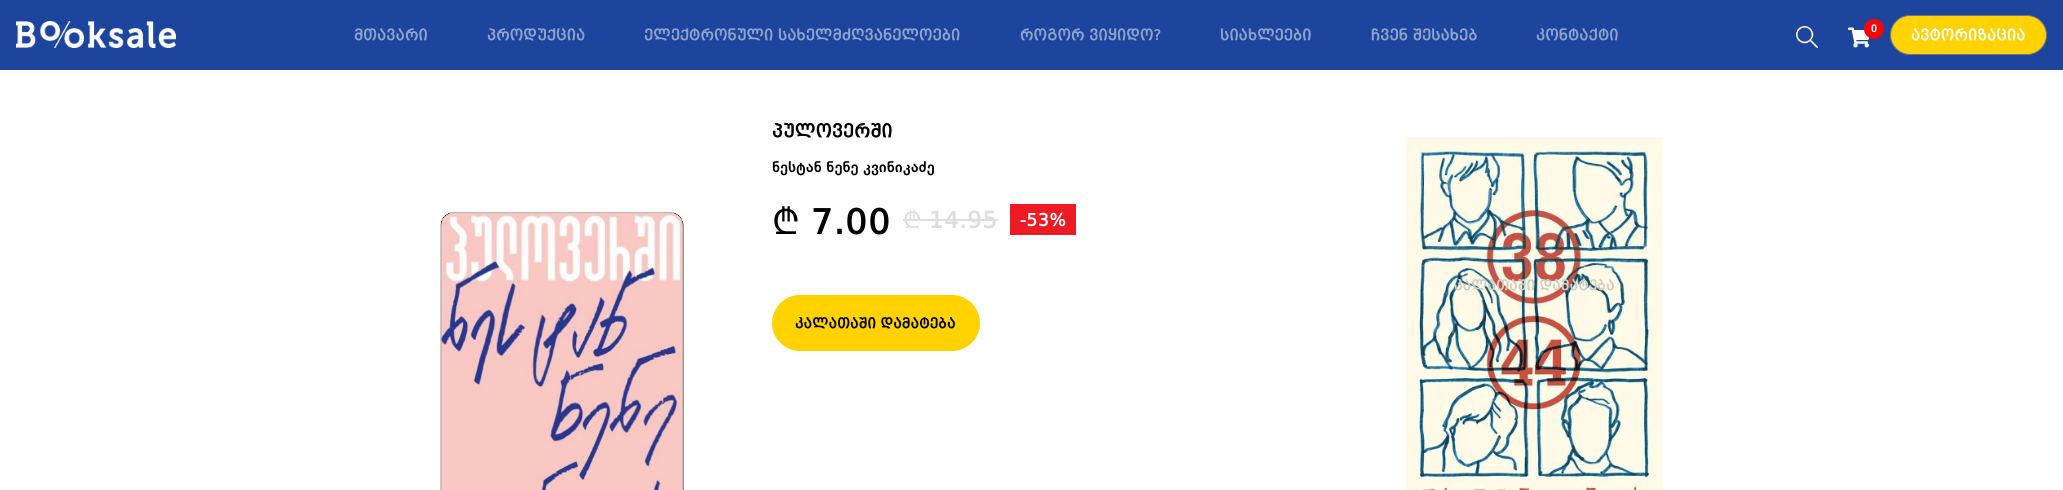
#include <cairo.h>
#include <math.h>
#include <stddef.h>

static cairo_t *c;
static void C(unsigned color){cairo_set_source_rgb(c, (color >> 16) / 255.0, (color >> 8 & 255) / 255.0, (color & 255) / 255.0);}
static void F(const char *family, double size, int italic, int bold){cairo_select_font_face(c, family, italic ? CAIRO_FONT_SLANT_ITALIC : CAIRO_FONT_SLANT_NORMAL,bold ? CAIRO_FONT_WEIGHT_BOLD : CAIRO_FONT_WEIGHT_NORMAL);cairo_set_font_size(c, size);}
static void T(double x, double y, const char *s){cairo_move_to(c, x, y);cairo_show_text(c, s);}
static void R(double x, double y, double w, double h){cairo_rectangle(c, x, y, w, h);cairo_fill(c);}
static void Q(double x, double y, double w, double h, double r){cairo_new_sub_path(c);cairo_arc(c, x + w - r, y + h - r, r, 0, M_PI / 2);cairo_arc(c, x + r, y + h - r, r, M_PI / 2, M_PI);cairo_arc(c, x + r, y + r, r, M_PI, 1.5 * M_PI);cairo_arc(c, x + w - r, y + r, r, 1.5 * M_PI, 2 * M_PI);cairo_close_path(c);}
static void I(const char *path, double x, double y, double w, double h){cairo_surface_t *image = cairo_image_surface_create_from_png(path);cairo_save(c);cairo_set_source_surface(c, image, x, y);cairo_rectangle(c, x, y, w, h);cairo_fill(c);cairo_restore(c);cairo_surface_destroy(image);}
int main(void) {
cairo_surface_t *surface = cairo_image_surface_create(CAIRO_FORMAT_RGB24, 2063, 490);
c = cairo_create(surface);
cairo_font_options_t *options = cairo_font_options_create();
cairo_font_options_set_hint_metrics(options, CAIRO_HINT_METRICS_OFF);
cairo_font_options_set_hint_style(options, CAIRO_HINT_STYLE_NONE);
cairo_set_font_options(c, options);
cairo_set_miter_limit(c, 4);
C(0xffffff);
cairo_paint(c);
C(0x1d459d);
R(0,0,2063,70);
I("1.png",16,21,160,27);
F("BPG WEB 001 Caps",15,0,0);
C(0x8ea2ce);
T(354,40,"მთავარი");
T(487,40,"პროდუქცია");
T(644,40,"ელექტრონული სახელმძღვანელოები");
T(1020,40,"როგორ ვიყიდო?");
T(1220,40,"სიახლეები");
T(1371,40,"ჩვენ შესახებ");
T(1536,40,"კონტაქტი");
I("2.png",1796,26,22,22);
I("3.png",1848,27,22,21);
C(0xff0000);
cairo_arc(c,1874,29,10,0,2 * M_PI);
cairo_fill(c);
F("Liberation Sans",11,0,1);
C(0xffffff);
T(1871,32,"0");
C(0xffd200);
Q(1890.5,15.5,156,39,19.5);
cairo_fill_preserve(c);
C(0x6c757d);
cairo_set_line_width(c,1);
cairo_stroke(c);
F("BPG WEB 001 Caps",15,0,0);
C(0xffffff);
T(1911,40,"ავტორიზაცია");
I("4.png",440,212,244,278);
F("BPG WEB 001 Caps",18,0,0);
C(0x000000);
T(772,137,"პულოვერში");
F("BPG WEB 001",15,0,0);
T(772,172,"ნესტან ნენე კვინიკაძე");
F("Noto Sans",36,0,0);
T(772,234,"₾");
F("BPG WEB 001 Caps",36,0,0);
T(811,234,"7.00");
F("Noto Sans",24,0,0);
C(0xdedede);
T(903,228,"₾");
F("BPG WEB 001 Caps",24,0,0);
T(929,228,"14.95");
R(903,219,95,2);
C(0xed1c24);
R(1010,204,66,31);
F("BPG WEB 001 Caps",18,0,0);
C(0xffffff);
T(1020,226,"-53%");
C(0xffd200);
Q(772,295,208,56,28);
cairo_fill(c);
F("BPG WEB 001 Caps",14,0,0);
C(0x000000);
T(795,328,"კალათაში დამატება");
I("5.png",1406,137,256,353);
C(0xd1cdc3);
T(1454,290,"კალათაში დამატება");
cairo_surface_write_to_png(surface, "o.png");
cairo_font_options_destroy(options);
cairo_destroy(c);
cairo_surface_destroy(surface);
return 0;
}
